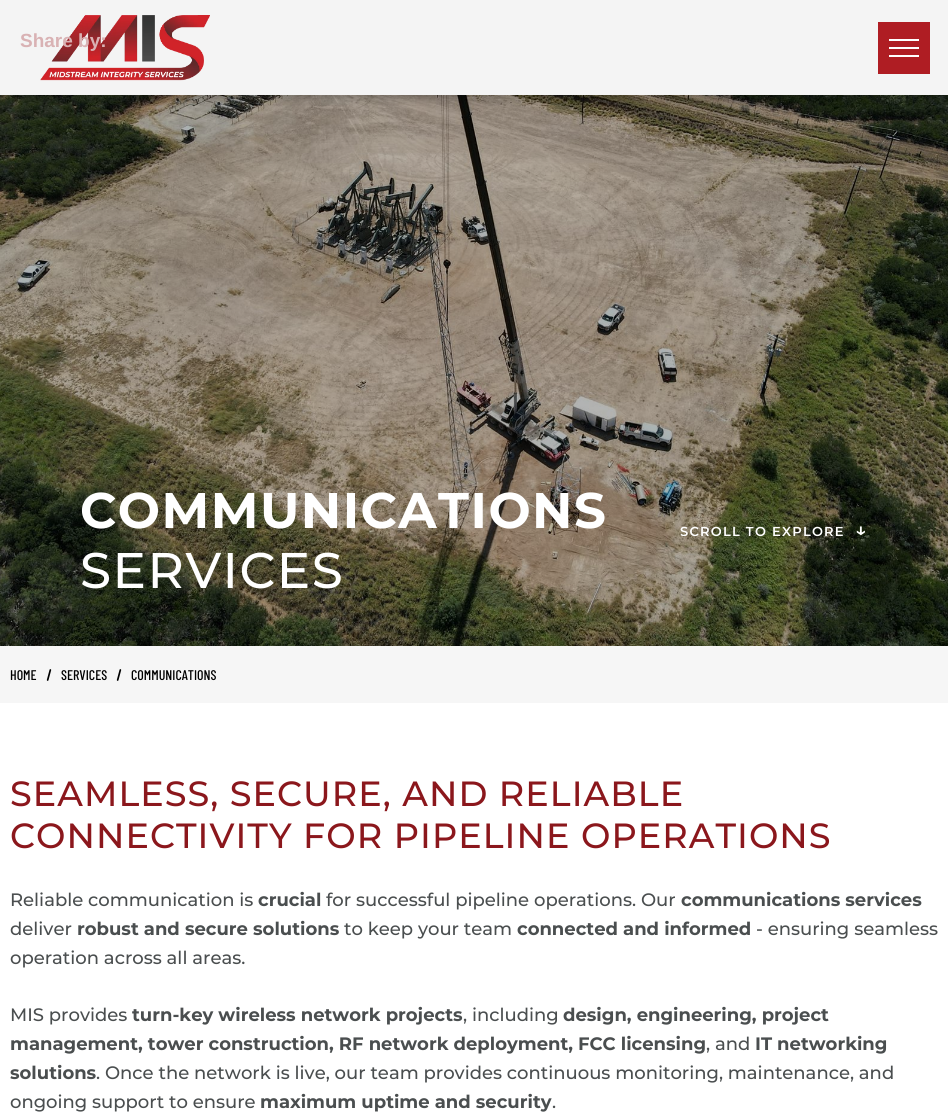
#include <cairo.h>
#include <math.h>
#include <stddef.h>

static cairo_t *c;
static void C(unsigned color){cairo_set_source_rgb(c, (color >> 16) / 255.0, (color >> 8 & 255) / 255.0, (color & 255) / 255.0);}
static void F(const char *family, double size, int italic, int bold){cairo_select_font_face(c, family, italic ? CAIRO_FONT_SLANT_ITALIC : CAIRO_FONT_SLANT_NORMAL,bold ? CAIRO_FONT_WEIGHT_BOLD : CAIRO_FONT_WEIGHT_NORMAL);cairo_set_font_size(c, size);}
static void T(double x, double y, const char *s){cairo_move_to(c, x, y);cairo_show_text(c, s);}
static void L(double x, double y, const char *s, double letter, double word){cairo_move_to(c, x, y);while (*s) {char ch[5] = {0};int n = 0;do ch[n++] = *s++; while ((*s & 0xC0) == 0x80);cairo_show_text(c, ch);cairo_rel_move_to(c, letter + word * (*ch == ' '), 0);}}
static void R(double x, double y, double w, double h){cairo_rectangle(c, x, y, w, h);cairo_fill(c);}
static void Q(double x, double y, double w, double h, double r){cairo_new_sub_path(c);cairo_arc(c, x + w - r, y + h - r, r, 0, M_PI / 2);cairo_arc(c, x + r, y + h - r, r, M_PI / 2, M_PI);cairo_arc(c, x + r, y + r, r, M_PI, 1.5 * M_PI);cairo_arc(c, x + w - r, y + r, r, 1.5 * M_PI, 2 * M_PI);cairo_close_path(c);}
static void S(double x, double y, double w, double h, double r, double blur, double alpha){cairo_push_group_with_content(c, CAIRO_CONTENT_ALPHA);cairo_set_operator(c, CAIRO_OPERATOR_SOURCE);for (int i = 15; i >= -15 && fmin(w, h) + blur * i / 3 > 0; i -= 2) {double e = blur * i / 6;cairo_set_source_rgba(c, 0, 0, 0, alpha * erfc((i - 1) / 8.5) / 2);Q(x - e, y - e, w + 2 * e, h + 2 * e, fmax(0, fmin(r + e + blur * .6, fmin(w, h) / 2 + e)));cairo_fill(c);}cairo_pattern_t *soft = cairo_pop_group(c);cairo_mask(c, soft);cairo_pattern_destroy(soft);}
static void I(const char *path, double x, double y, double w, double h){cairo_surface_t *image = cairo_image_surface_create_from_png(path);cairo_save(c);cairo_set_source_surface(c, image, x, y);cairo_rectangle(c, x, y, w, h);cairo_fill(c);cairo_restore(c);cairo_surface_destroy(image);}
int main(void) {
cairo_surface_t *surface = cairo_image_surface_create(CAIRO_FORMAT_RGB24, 948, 1112);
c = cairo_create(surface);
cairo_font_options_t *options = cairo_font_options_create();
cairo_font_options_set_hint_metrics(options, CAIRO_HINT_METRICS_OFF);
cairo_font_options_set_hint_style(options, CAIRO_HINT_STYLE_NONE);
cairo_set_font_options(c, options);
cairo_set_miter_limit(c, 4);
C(0xffffff);
cairo_paint(c);
C(0xf4f4f4);
R(0,0,948,95);
I("2.png",0,95,948,551);
cairo_save(c);
cairo_rectangle(c,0,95,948,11);
cairo_clip(c);
C(0x000000);
S(0,3,948,95,0,5.5,.25);
cairo_restore(c);
I("1.png",40,15,170,66);
F("Liberation Sans",19,0,1);
C(0xd9b2b4);
T(20,47,"Share by:");
C(0xaf1d23);
R(878,22,52,52);
C(0xffffff);
R(889,39,30,2);
R(889,47,30,2);
R(889,55,30,2);
F("Montserrat",50,0,1);
L(80,528,"COMMUNICATIONS",1.5,0);
F("Montserrat Medium",50,0,0);
L(80,588,"SERVICES",1.5,0);
F("Montserrat SemiBold",13,0,0);
L(680,536,"SCROLL TO EXPLORE",1.25,0);
F("Montserrat SemiBold",19,0,0);
L(855,536,"↓",1.25,0);
C(0xf6f6f6);
R(0,646,948,57);
F("Barlow Condensed Medium",14,0,0);
C(0x000000);
T(10,680,"HOME");
I("3.png",46,669,6,12);
T(61,680,"SERVICES");
I("3.png",116,669,6,12);
T(131,680,"COMMUNICATIONS");
F("Montserrat Medium",35,0,0);
C(0x8b171c);
L(10,806,"SEAMLESS, SECURE, AND RELIABLE",1.05,0);
L(10,848,"CONNECTIVITY FOR PIPELINE OPERATIONS",1.05,0);
F("Montserrat Medium",18,0,0);
C(0x4a4e4f);
T(10,906,"Reliable communication is");
F("Montserrat",18,0,1);
T(258,906,"crucial");
F("Montserrat Medium",18,0,0);
T(326,906,"for successful pipeline operations. Our");
F("Montserrat",18,0,1);
T(681,906,"communications services");
F("Montserrat Medium",18,0,0);
T(10,935,"deliver");
F("Montserrat",18,0,1);
T(77,935,"robust and secure solutions");
F("Montserrat Medium",18,0,0);
T(344,935,"to keep your team");
F("Montserrat",18,0,1);
T(517,935,"connected and informed");
F("Montserrat Medium",18,0,0);
T(756,935,"- ensuring seamless");
T(10,964,"operation across all areas.");
T(10,1021,"MIS provides");
F("Montserrat",18,0,1);
T(132,1021,"turn-key wireless network projects");
F("Montserrat Medium",18,0,0);
T(463,1021,", including");
F("Montserrat",18,0,1);
T(563,1021,"design, engineering, project");
T(10,1050,"management, tower construction, RF network deployment, FCC licensing");
F("Montserrat Medium",18,0,0);
T(706,1050,", and");
F("Montserrat",18,0,1);
T(755,1050,"IT networking");
T(10,1079,"solutions");
F("Montserrat Medium",18,0,0);
T(96,1079,". Once the network is live, our team provides continuous monitoring, maintenance, and");
T(10,1108,"ongoing support to ensure");
F("Montserrat",18,0,1);
T(260,1108,"maximum uptime and security");
F("Montserrat Medium",18,0,0);
T(552,1108,".");
cairo_surface_write_to_png(surface, "o.png");
cairo_font_options_destroy(options);
cairo_destroy(c);
cairo_surface_destroy(surface);
return 0;
}
